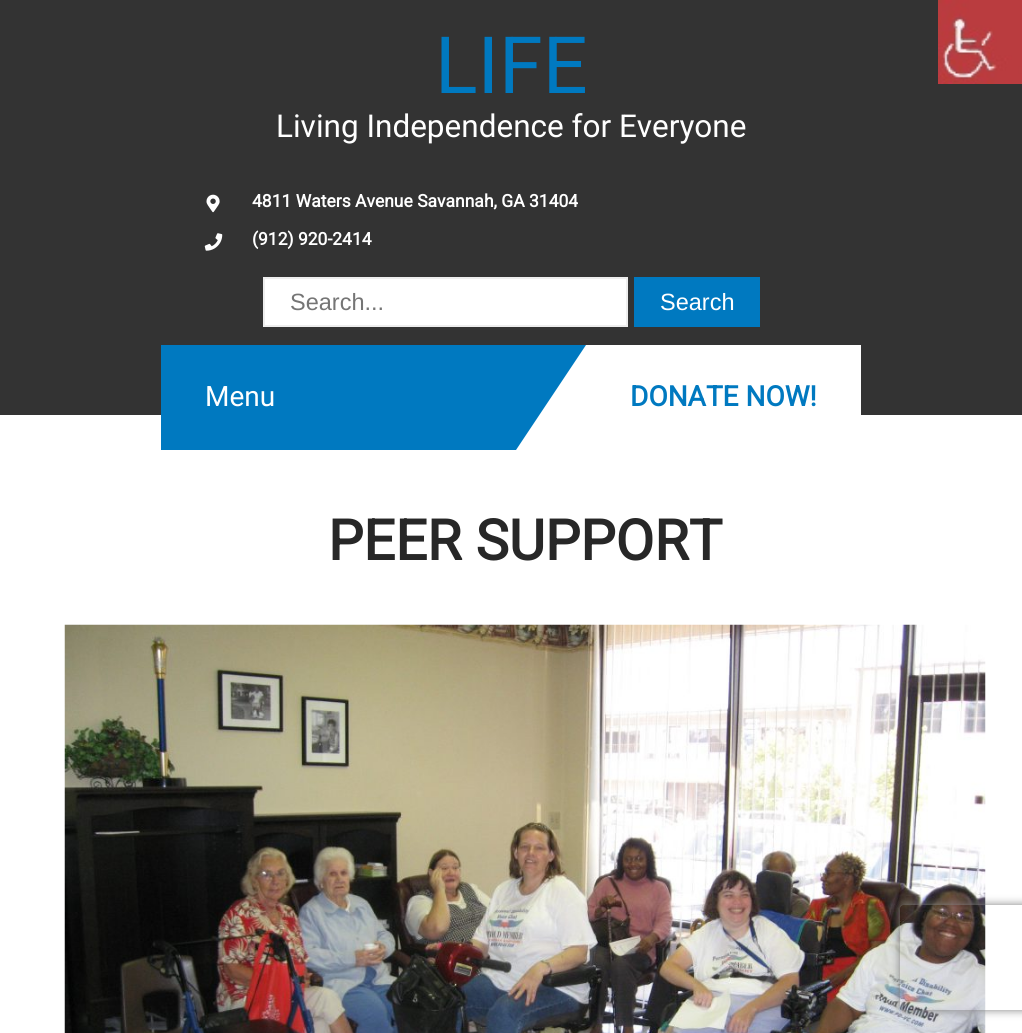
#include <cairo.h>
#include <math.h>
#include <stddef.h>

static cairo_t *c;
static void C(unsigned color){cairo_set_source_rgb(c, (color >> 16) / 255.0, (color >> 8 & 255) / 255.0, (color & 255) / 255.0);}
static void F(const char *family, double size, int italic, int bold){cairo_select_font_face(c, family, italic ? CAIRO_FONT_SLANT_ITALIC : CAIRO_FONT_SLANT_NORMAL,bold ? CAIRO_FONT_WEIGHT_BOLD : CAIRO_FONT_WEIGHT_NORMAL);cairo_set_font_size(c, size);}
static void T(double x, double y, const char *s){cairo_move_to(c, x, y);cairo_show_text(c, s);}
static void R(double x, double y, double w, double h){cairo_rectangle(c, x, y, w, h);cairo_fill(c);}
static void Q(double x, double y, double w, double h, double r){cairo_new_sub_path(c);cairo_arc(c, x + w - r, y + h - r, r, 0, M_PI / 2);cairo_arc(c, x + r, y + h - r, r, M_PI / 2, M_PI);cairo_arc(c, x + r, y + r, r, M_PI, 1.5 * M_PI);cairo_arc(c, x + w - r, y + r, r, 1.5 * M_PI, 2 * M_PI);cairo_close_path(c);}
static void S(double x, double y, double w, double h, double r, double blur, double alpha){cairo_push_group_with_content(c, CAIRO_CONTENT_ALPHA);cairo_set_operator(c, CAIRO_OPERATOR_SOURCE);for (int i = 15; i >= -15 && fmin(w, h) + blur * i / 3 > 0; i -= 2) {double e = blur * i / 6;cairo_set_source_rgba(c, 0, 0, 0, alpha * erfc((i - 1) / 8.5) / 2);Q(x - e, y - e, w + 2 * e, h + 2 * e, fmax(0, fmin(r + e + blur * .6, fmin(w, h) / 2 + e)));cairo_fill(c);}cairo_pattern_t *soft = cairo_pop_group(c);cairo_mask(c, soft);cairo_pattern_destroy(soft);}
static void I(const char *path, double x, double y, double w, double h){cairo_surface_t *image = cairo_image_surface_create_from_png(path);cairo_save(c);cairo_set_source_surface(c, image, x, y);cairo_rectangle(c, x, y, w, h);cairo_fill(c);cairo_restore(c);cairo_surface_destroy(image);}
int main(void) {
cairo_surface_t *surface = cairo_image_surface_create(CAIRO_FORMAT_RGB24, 1022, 1033);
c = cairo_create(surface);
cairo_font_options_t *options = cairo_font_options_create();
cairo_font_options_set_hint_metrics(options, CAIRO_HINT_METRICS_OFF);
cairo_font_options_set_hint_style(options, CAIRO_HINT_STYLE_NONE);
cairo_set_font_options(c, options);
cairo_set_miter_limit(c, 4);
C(0xffffff);
cairo_paint(c);
C(0x333333);
R(0,0,1022,415);
F("Roboto",79,0,0);
C(0x0079c0);
T(435,93,"LIFE");
F("Roboto",31.5,0,0);
C(0xffffff);
T(276,137,"Living Independence for Everyone");
I("1.png",206,194,14,19);
F("Roboto",17.5,0,1);
T(252,207,"4811 Waters Avenue Savannah, GA 31404");
I("2.png",204,233,19,18);
T(252,245,"(912) 920-2414");
cairo_rectangle(c,264,278,363,48);
cairo_fill_preserve(c);
C(0xeeeeee);
cairo_stroke(c);
F("Liberation Sans",23.5,0,0);
C(0x757575);
T(290,310,"Search...");
C(0x0079c0);
R(634,277,126,50);
C(0xffffff);
T(660,310,"Search");
C(0x0079c0);
R(161,345,425,105);
F("Roboto",28,0,0);
C(0xffffff);
T(205,406,"Menu");
R(586,345,275,70);
cairo_new_path(c);
cairo_move_to(c,586,345);
cairo_line_to(c,586,450);
cairo_line_to(c,516,450);
cairo_close_path(c);
cairo_fill(c);
F("Roboto",28,0,1);
C(0x0079c0);
T(630,406,"DONATE NOW!");
F("Roboto",56,0,1);
C(0x272727);
T(328,560,"PEER SUPPORT");
I("3.png",64,624,922,409);
I("4.png",938,0,84,84);
cairo_save(c);
cairo_set_fill_rule(c,CAIRO_FILL_RULE_EVEN_ODD);
cairo_new_path(c);
cairo_move_to(c,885,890);
cairo_line_to(c,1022,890);
cairo_line_to(c,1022,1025);
cairo_line_to(c,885,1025);
cairo_close_path(c);
cairo_move_to(c,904,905);
cairo_line_to(c,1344,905);
cairo_curve_to(c,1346,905,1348,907,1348,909);
cairo_line_to(c,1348,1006);
cairo_curve_to(c,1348,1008,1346,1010,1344,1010);
cairo_line_to(c,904,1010);
cairo_curve_to(c,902,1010,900,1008,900,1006);
cairo_line_to(c,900,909);
cairo_curve_to(c,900,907,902,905,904,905);
cairo_close_path(c);
cairo_clip(c);
C(0x808080);
S(900,905,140,105,4,4.5,1);
cairo_restore(c);
cairo_surface_write_to_png(surface, "o.png");
cairo_font_options_destroy(options);
cairo_destroy(c);
cairo_surface_destroy(surface);
return 0;
}
